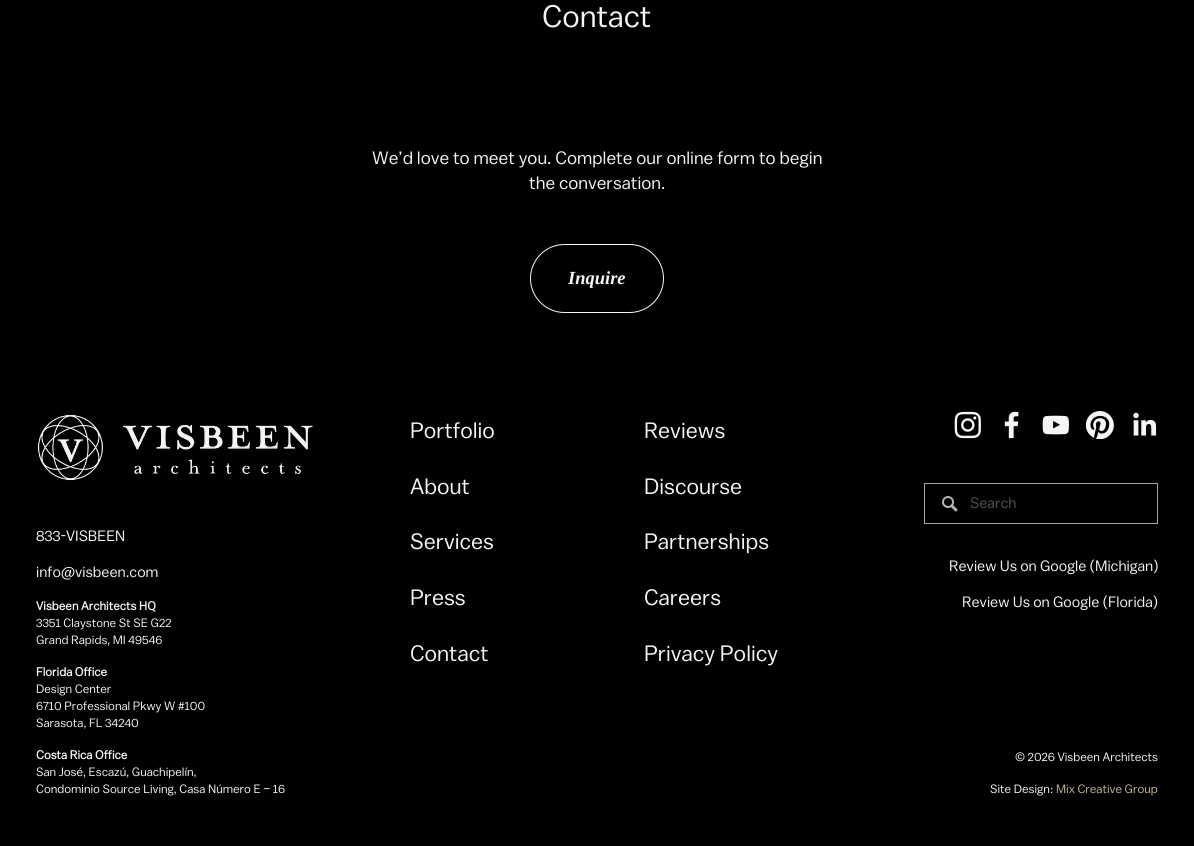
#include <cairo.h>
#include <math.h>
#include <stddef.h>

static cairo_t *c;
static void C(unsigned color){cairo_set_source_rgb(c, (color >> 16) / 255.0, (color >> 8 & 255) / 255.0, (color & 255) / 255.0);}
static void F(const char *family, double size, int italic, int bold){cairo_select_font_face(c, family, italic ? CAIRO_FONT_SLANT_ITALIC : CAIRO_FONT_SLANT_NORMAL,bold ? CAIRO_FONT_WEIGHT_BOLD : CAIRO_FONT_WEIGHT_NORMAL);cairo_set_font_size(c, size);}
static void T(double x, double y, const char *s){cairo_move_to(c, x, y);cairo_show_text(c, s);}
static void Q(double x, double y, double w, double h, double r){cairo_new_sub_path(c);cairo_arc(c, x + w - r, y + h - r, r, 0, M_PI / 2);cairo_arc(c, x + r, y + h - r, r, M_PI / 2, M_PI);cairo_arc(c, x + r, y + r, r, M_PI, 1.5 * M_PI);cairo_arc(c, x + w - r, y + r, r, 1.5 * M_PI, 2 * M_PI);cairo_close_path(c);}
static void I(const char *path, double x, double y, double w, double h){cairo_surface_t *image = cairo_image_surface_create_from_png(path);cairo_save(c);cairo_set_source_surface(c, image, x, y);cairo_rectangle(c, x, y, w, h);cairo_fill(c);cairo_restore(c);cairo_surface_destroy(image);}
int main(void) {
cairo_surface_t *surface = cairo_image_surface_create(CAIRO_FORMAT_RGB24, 1194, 846);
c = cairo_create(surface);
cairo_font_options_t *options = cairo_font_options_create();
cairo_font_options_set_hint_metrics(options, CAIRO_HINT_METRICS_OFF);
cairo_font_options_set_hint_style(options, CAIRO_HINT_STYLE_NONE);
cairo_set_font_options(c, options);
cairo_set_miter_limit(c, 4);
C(0x000000);
cairo_paint(c);
F("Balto",31,0,0);
C(0xf5f5f5);
T(542,27,"Contact");
F("Balto",17.9,0,0);
T(372,164,"We’d love to meet you. Complete our online form to begin");
T(529,189,"the conversation.");
Q(530.5,244.5,133,68,34);
cairo_set_line_width(c,1);
cairo_stroke(c);
F("Liberation Serif",18.5,1,1);
T(568,284,"Inquire");
I("1.png",37,414,276,67);
F("Balto",22.25,0,0);
T(410,438,"Portfolio");
T(410,494,"About");
T(410,549,"Services");
T(410,605,"Press");
T(410,661,"Contact");
T(644,438,"Reviews");
T(644,494,"Discourse");
T(644,549,"Partnerships");
T(644,605,"Careers");
T(644,661,"Privacy Policy");
I("2.png",954,411,27,28);
I("3.png",1004,411,15,28);
I("4.png",1042,415,27,20);
I("5.png",1086,411,28,28);
I("6.png",1133,412,24,24);
I("7.png",942,496,16,16);
cairo_rectangle(c,924.5,483.5,233,40);
C(0xa7a7a7);
cairo_stroke(c);
F("Balto",15,0,0);
C(0x525252);
T(970,508,"Search");
C(0xf5f5f5);
T(36,541,"833-VISBEEN");
T(36,577,"info@visbeen.com");
F("Balto",12.1,0,1);
T(36,610,"Visbeen Architects HQ");
F("Balto",12.1,0,0);
T(36,627,"3351 Claystone St SE G22");
T(36,644,"Grand Rapids, MI 49546");
F("Balto",12.1,0,1);
T(36,676,"Florida Office");
F("Balto",12.1,0,0);
T(36,693,"Design Center");
T(36,710,"6710 Professional Pkwy W #100");
T(36,727,"Sarasota, FL 34240");
F("Balto",12.1,0,1);
T(36,759,"Costa Rica Office");
F("Balto",12.1,0,0);
T(36,776,"San José, Escazú, Guachipelín,");
T(36,793,"Condominio Source Living, Casa Número E – 16");
F("Balto",15,0,0);
T(949,571,"Review Us on Google (Michigan)");
T(962,607,"Review Us on Google (Florida)");
F("Balto",12.1,0,0);
T(1015,761,"© 2026 Visbeen Architects");
T(990,793,"Site Design:");
C(0xc7b9a1);
T(1056,793,"Mix Creative Group");
cairo_surface_write_to_png(surface, "o.png");
cairo_font_options_destroy(options);
cairo_destroy(c);
cairo_surface_destroy(surface);
return 0;
}
